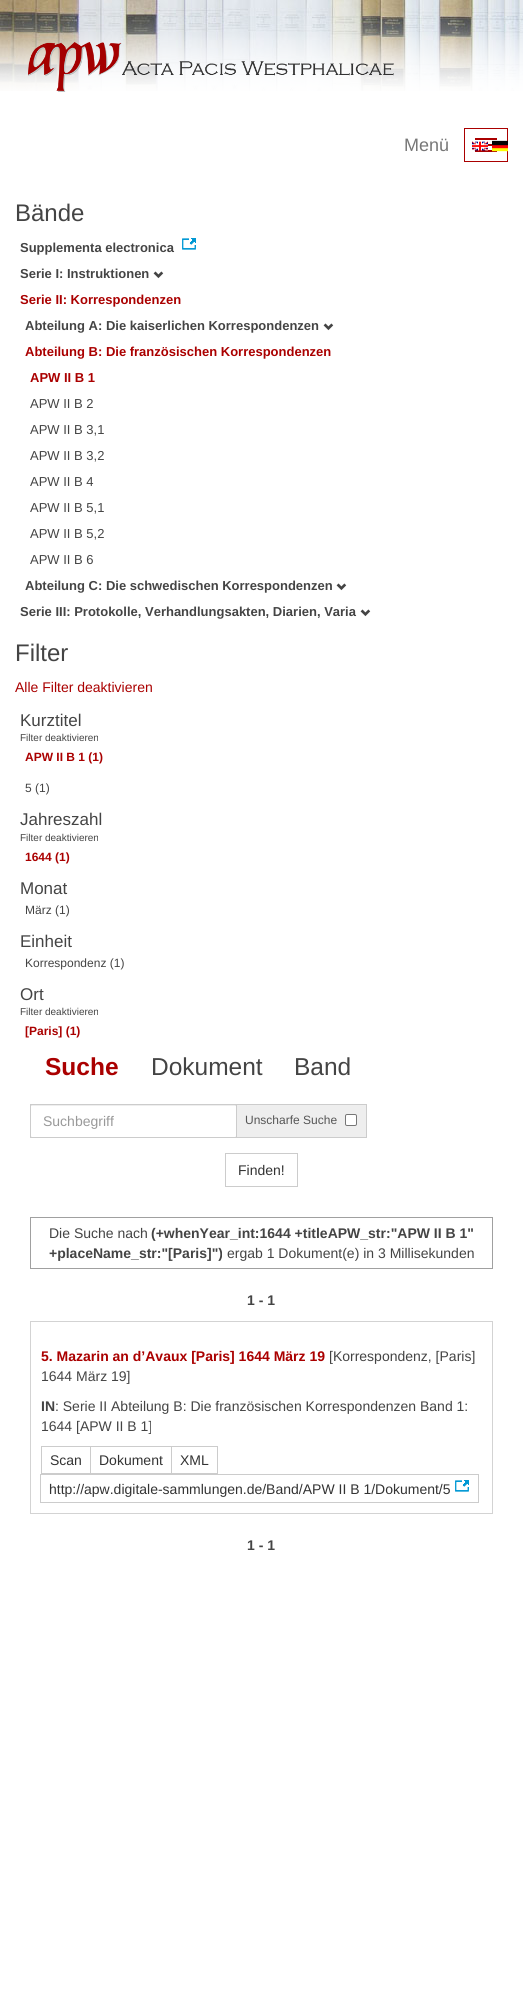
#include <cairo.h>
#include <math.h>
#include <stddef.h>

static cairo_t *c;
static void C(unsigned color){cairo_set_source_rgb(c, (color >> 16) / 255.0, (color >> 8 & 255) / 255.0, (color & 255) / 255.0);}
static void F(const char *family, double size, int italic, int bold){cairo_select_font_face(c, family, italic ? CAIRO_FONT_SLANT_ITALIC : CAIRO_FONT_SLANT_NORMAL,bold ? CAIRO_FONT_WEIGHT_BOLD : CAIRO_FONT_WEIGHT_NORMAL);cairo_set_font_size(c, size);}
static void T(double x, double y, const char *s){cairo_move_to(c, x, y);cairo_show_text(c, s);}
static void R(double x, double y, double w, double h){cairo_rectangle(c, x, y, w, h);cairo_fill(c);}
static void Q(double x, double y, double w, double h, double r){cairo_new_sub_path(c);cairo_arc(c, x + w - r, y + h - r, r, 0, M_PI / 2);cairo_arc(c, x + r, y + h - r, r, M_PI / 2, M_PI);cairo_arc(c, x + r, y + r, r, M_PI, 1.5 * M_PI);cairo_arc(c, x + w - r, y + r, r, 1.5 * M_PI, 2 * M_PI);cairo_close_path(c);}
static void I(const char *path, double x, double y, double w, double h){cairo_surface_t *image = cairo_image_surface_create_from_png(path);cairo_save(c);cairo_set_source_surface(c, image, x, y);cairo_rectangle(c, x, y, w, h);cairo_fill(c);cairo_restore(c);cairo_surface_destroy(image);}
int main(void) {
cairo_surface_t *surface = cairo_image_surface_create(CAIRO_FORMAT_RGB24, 523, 2012);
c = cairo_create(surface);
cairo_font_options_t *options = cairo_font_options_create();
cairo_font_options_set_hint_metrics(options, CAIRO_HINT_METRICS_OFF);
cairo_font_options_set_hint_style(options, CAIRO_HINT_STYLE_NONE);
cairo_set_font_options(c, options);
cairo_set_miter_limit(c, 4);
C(0xffffff);
cairo_paint(c);
I("1.png",0,0,523,91);
I("2.png",28,42,366,50);
F("Liberation Sans",18,0,0);
C(0x777777);
T(404,151,"Menü");
cairo_rectangle(c,464.5,128.5,43,33);
C(0xaa0000);
cairo_set_line_width(c,1);
cairo_stroke(c);
R(475,138,22,2);
R(488,144,9,2);
R(475,150,22,2);
I("3.png",472,141,16,10);
I("4.png",492,140,16,12);
F("Liberation Sans",24,0,0);
C(0x444444);
T(15,221,"Bände");
F("Liberation Sans",13,0,1);
T(20,252,"Supplementa electronica");
I("5.png",182,238,14,12);
T(20,278,"Serie I: Instruktionen");
I("6.png",153,271,11,8);
C(0xaa0000);
T(20,304,"Serie II: Korrespondenzen");
C(0x444444);
T(25,330,"Abteilung A: Die kaiserlichen Korrespondenzen");
I("6.png",323,323,11,8);
C(0xaa0000);
T(25,356,"Abteilung B: Die französischen Korrespondenzen");
T(30,382,"APW II B 1");
F("Liberation Sans",13,0,0);
C(0x444444);
T(30,408,"APW II B 2");
T(30,434,"APW II B 3,1");
T(30,460,"APW II B 3,2");
T(30,486,"APW II B 4");
T(30,512,"APW II B 5,1");
T(30,538,"APW II B 5,2");
T(30,564,"APW II B 6");
F("Liberation Sans",13,0,1);
T(25,590,"Abteilung C: Die schwedischen Korrespondenzen");
I("6.png",336,583,11,8);
T(20,616,"Serie III: Protokolle, Verhandlungsakten, Diarien, Varia");
I("6.png",360,609,11,8);
F("Liberation Sans",24,0,0);
T(15,661,"Filter");
F("Liberation Sans",14,0,0);
C(0xaa0000);
T(15,692,"Alle Filter deaktivieren");
F("Liberation Sans",17,0,0);
C(0x444444);
T(20,726,"Kurztitel");
F("Liberation Sans",10,0,0);
T(20,741,"Filter deaktivieren");
F("Liberation Sans",12,0,1);
C(0xaa0000);
T(25,761,"APW II B 1 (1)");
F("Liberation Sans",12,0,0);
C(0x444444);
T(25,792,"5 (1)");
F("Liberation Sans",17,0,0);
T(20,825,"Jahreszahl");
F("Liberation Sans",10,0,0);
T(20,841,"Filter deaktivieren");
F("Liberation Sans",12,0,1);
C(0xaa0000);
T(25,861,"1644 (1)");
F("Liberation Sans",17,0,0);
C(0x444444);
T(20,894,"Monat");
F("Liberation Sans",12,0,0);
T(25,914,"März (1)");
F("Liberation Sans",17,0,0);
T(20,947,"Einheit");
F("Liberation Sans",12,0,0);
T(25,967,"Korrespondenz (1)");
F("Liberation Sans",17,0,0);
T(20,1000,"Ort");
F("Liberation Sans",10,0,0);
T(20,1015,"Filter deaktivieren");
F("Liberation Sans",12,0,1);
C(0xaa0000);
T(25,1035,"[Paris] (1)");
F("Liberation Sans",24.5,0,1);
T(45,1075,"Suche");
F("Liberation Sans",24.5,0,0);
C(0x444444);
T(151,1075,"Dokument");
T(294,1075,"Band");
Q(30.5,1104.5,206,33,1.5);
C(0xd6d6d6);
cairo_stroke(c);
cairo_set_source_rgba(c,0,0,0,0.07);
R(31,1105,205,1);
cairo_rectangle(c,30.5,1104.5,206,33);
C(0xcccccc);
cairo_stroke(c);
F("Liberation Sans",14,0,0);
C(0x999999);
T(43,1126,"Suchbegriff");
C(0xeeeeee);
R(237,1105,129,32);
C(0xcccccc);
R(237,1104,130,1);
R(366,1104,1,34);
R(237,1137,130,1);
F("Liberation Sans",12,0,0);
C(0x555555);
T(245,1124,"Unscharfe Suche");
C(0xffffff);
Q(345.5,1114.5,11,11,1.5);
cairo_fill_preserve(c);
C(0x767676);
cairo_stroke(c);
cairo_rectangle(c,225.5,1153.5,72,33);
C(0xcccccc);
cairo_stroke(c);
F("Liberation Sans",14,0,0);
C(0x333333);
T(238,1175,"Finden!");
cairo_rectangle(c,30.5,1217.5,462,51);
C(0xa0a0a0);
cairo_stroke(c);
C(0x444444);
T(49,1238,"Die Suche nach");
F("Liberation Sans",14,0,1);
T(151,1238,"(+whenYear_int:1644 +titleAPW_str:\"APW II B 1\"");
T(49,1258,"+placeName_str:\"[Paris]\")");
F("Liberation Sans",14,0,0);
T(227,1258,"ergab 1 Dokument(e) in 3 Millisekunden");
F("Liberation Sans",14,0,1);
T(247,1305,"1 - 1");
cairo_rectangle(c,30.5,1321.5,462,192);
C(0xd3d3d3);
cairo_stroke(c);
C(0xaa0000);
T(41,1361,"5. Mazarin an d’Avaux [Paris] 1644 März 19");
F("Liberation Sans",14,0,0);
C(0x444444);
T(329,1361,"[Korrespondenz, [Paris]");
T(41,1381,"1644 März 19]");
F("Liberation Sans",14,0,1);
T(41,1411,"IN");
F("Liberation Sans",14,0,0);
T(55,1411,": Serie II Abteilung B: Die französischen Korrespondenzen Band 1:");
T(41,1431,"1644 [APW II B 1]");
cairo_rectangle(c,41.5,1446.5,49,27);
C(0xcccccc);
cairo_stroke(c);
C(0x333333);
T(50,1465,"Scan");
cairo_rectangle(c,90.5,1446.5,81,27);
C(0xcccccc);
cairo_stroke(c);
C(0x333333);
T(99,1465,"Dokument");
cairo_rectangle(c,171.5,1446.5,46,27);
C(0xcccccc);
cairo_stroke(c);
C(0x333333);
T(180,1465,"XML");
cairo_rectangle(c,40.5,1474.5,438,28);
C(0xcccccc);
cairo_stroke(c);
C(0x333333);
T(49,1494,"http://apw.digitale-sammlungen.de/Band/APW II B 1/Dokument/5");
I("5.png",455,1480,14,12);
F("Liberation Sans",14,0,1);
C(0x444444);
T(247,1550,"1 - 1");
cairo_surface_write_to_png(surface, "o.png");
cairo_font_options_destroy(options);
cairo_destroy(c);
cairo_surface_destroy(surface);
return 0;
}
